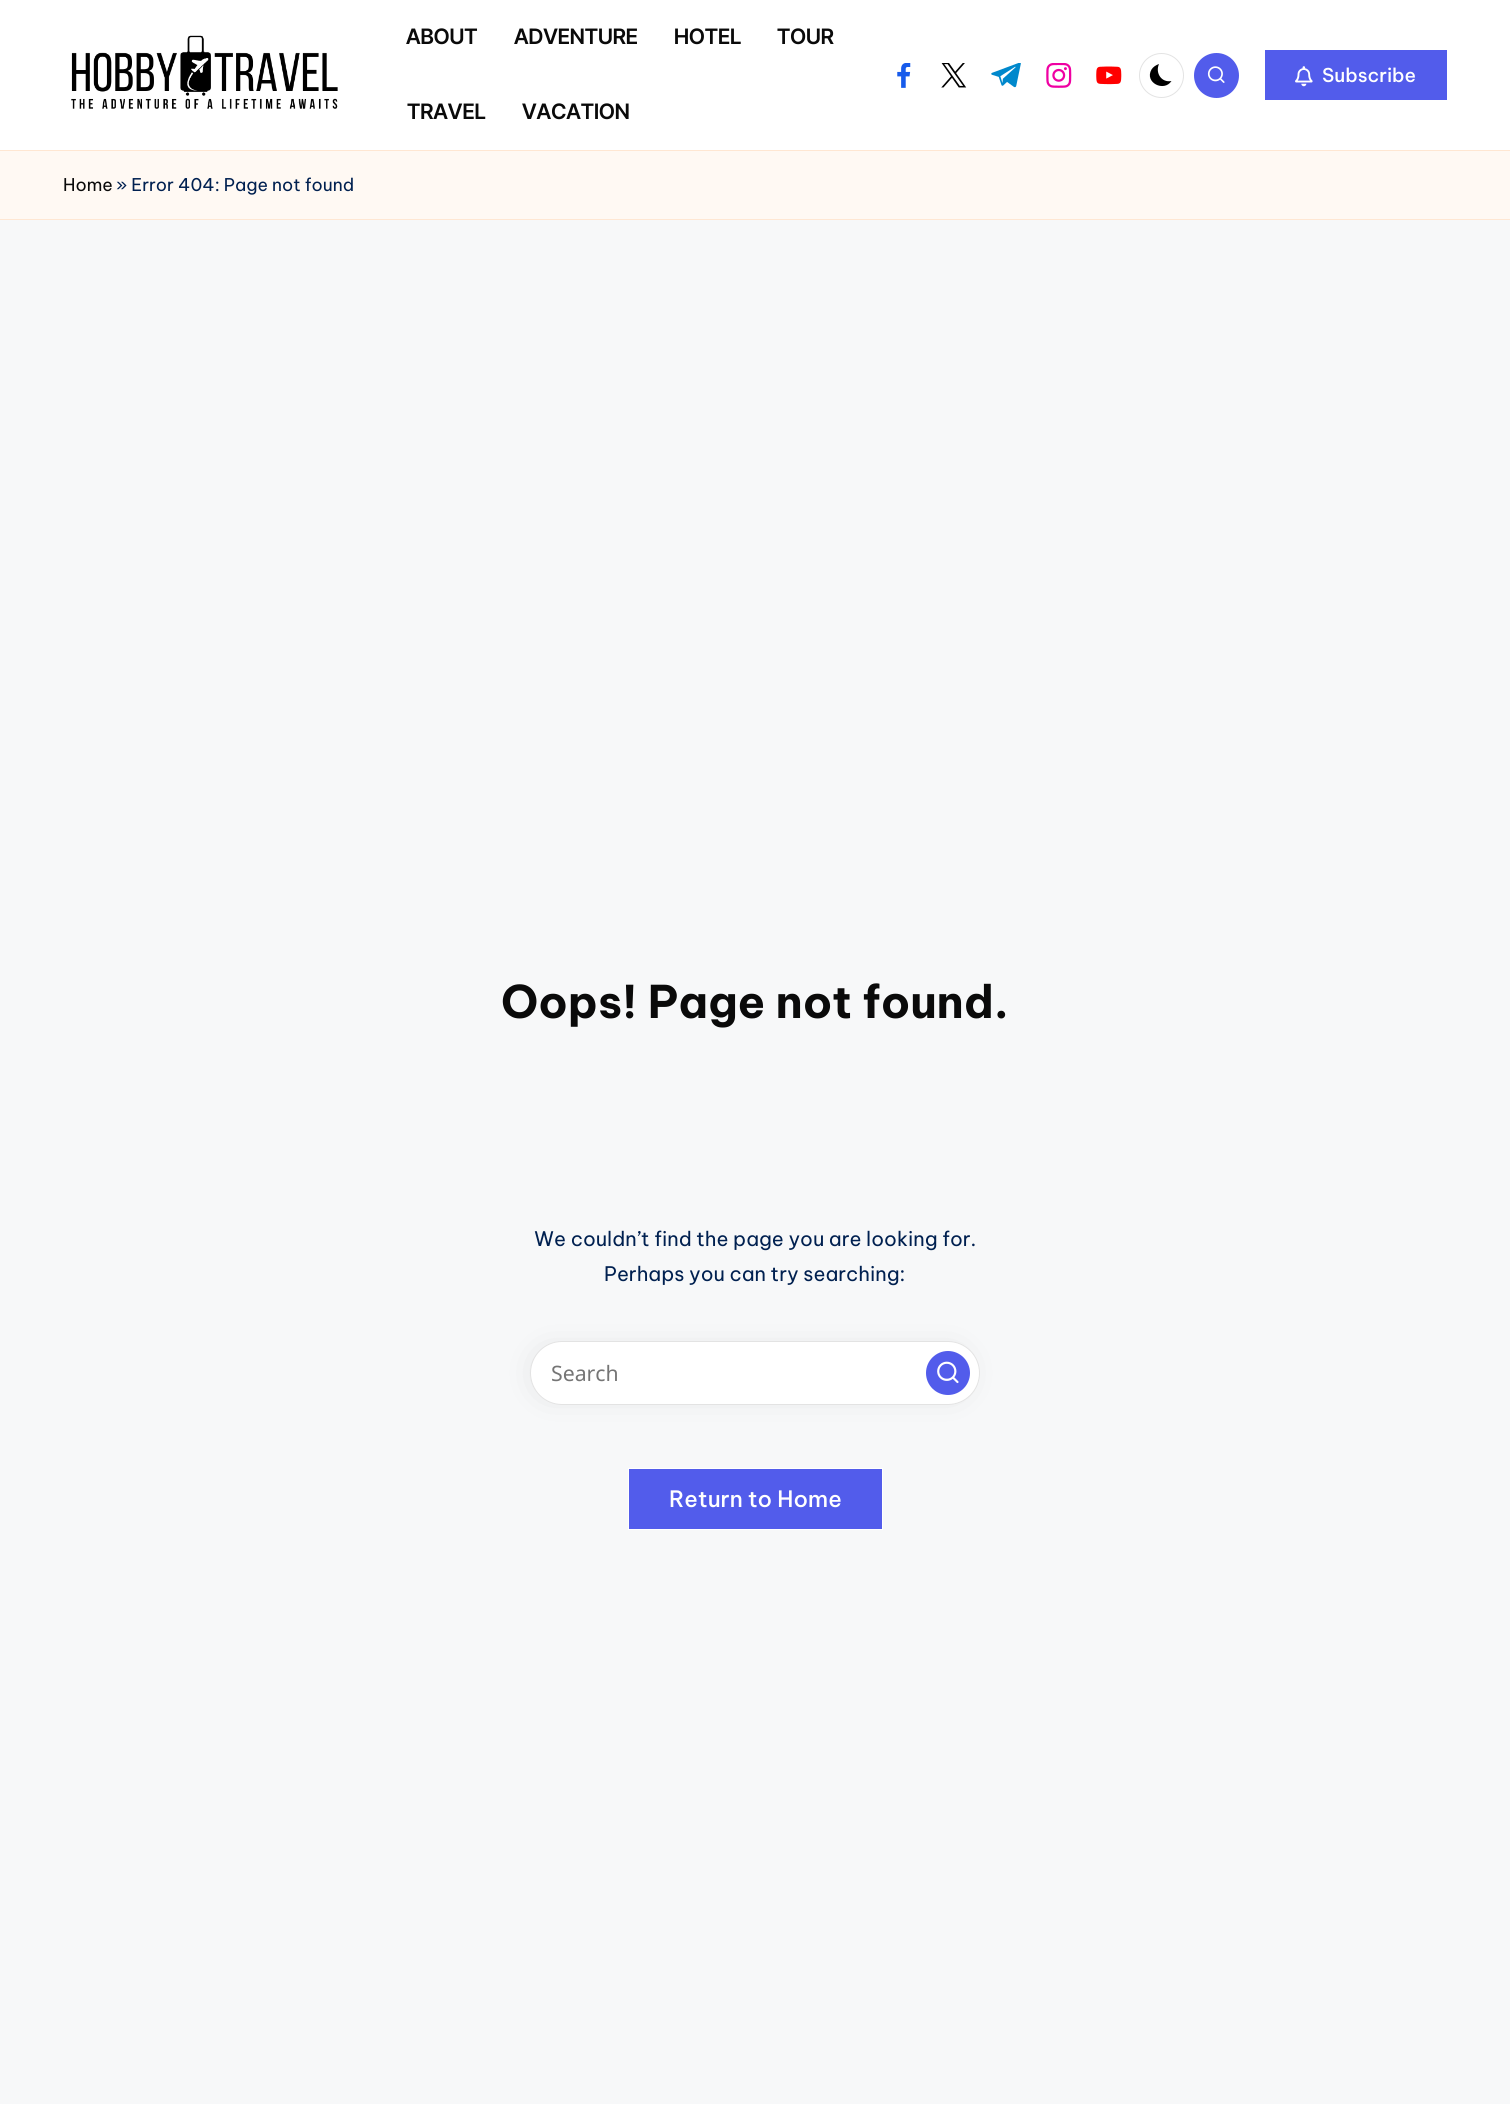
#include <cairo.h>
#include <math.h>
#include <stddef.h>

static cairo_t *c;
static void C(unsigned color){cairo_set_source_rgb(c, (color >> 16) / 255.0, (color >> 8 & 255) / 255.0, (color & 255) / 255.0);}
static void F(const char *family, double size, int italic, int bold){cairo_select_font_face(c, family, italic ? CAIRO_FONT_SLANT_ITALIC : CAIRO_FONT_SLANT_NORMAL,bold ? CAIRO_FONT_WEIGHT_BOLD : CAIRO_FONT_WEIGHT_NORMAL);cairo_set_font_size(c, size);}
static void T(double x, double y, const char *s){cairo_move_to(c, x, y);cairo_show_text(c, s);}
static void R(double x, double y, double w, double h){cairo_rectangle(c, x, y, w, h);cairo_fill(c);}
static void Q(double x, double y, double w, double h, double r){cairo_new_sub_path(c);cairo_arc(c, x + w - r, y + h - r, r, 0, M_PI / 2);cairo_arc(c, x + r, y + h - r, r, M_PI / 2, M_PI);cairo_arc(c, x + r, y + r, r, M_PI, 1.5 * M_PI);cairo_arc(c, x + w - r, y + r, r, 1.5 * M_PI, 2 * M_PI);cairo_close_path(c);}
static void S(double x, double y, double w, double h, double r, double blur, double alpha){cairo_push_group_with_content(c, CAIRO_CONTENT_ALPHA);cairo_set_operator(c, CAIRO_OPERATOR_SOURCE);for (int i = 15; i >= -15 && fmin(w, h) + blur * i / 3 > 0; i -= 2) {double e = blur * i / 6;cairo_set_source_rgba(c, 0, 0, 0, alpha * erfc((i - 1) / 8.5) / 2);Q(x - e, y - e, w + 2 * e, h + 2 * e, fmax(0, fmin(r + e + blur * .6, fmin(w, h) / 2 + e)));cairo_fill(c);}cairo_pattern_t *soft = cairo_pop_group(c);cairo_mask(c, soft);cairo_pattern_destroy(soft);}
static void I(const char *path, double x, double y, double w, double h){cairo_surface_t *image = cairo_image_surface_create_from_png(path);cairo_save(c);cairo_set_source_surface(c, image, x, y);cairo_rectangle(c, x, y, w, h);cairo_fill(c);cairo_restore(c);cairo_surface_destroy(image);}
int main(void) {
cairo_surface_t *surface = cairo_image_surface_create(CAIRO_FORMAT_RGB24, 1510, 2104);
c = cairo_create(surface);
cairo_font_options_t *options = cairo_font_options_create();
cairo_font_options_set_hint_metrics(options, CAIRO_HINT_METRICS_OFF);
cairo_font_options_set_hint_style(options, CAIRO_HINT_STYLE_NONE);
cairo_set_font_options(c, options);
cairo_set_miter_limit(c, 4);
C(0xf7f8f9);
cairo_paint(c);
C(0xffffff);
R(0,0,1510,150);
I("1.png",71,35,267,74);
F("Inter Tight SemiBold",21.25,0,0);
C(0x0a0a0a);
T(406,44,"ABOUT");
T(514,44,"ADVENTURE");
T(674,44,"HOTEL");
T(777,44,"TOUR");
T(407,119,"TRAVEL");
T(522,119,"VACATION");
I("2.png",897,63,14,25);
I("3.png",941,63,26,25);
I("4.png",991,63,30,25);
I("5.png",1046,63,26,25);
I("6.png",1096,66,26,19);
cairo_arc(c,1161.5,75.5,22,0,2 * M_PI);
C(0xe3e3e3);
cairo_set_line_width(c,1);
cairo_stroke(c);
C(0x000000);
cairo_new_path(c);
cairo_move_to(c,1171.5,81);
cairo_curve_to(c,1161.5,83,1155,73,1159,64);
cairo_curve_to(c,1156,65,1153,67,1151.5,69.5);
cairo_curve_to(c,1144,82.5,1164,92.5,1171.5,81);
cairo_close_path(c);
cairo_fill(c);
C(0x525ceb);
cairo_arc(c,1216.5,75.5,22.5,0,2 * M_PI);
cairo_fill(c);
I("7.png",1207,66,18,17);
R(1265,50,182,50);
I("8.png",1295,66,18,21);
F("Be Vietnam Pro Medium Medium",19,0,0);
C(0xffffff);
T(1322,82,"Subscribe");
C(0xfff9f3);
R(0,151,1510,68);
C(0xffe7d2);
R(0,150,1510,1);
R(0,219,1510,1);
F("Be Vietnam Pro",17.5,0,0);
C(0x0a0a0a);
T(63,191,"Home");
C(0x002050);
T(116,191,"» Error 404: Page not found");
F("Be Vietnam Pro",45,0,1);
C(0x0a0a0a);
T(501,1018,"Oops! Page not found.");
F("Be Vietnam Pro",20,0,0);
C(0x002050);
T(534,1246,"We couldn’t find the page you are looking for.");
T(604,1281,"Perhaps you can try searching:");
C(0x000000);
S(546,1361,410,24,12,20,.15);
C(0xffffff);
Q(530,1341,450,64,32);
cairo_fill(c);
Q(530.5,1341.5,449,63,31.5);
cairo_set_source_rgba(c,0.725,0.725,0.725,0.4);
cairo_stroke(c);
F("Noto Sans",21.25,0,0);
C(0x757575);
T(551,1381,"Search");
C(0x525ceb);
cairo_new_path(c);
cairo_arc(c,948,1373,22,0,2 * M_PI);
cairo_fill(c);
I("9.png",937,1361,22,23);
cairo_rectangle(c,628.5,1468.5,254,61);
cairo_fill_preserve(c);
C(0xffffff);
cairo_stroke(c);
F("Be Vietnam Pro Medium Medium",22.5,0,0);
T(669,1507,"Return to Home");
cairo_surface_write_to_png(surface, "o.png");
cairo_font_options_destroy(options);
cairo_destroy(c);
cairo_surface_destroy(surface);
return 0;
}
